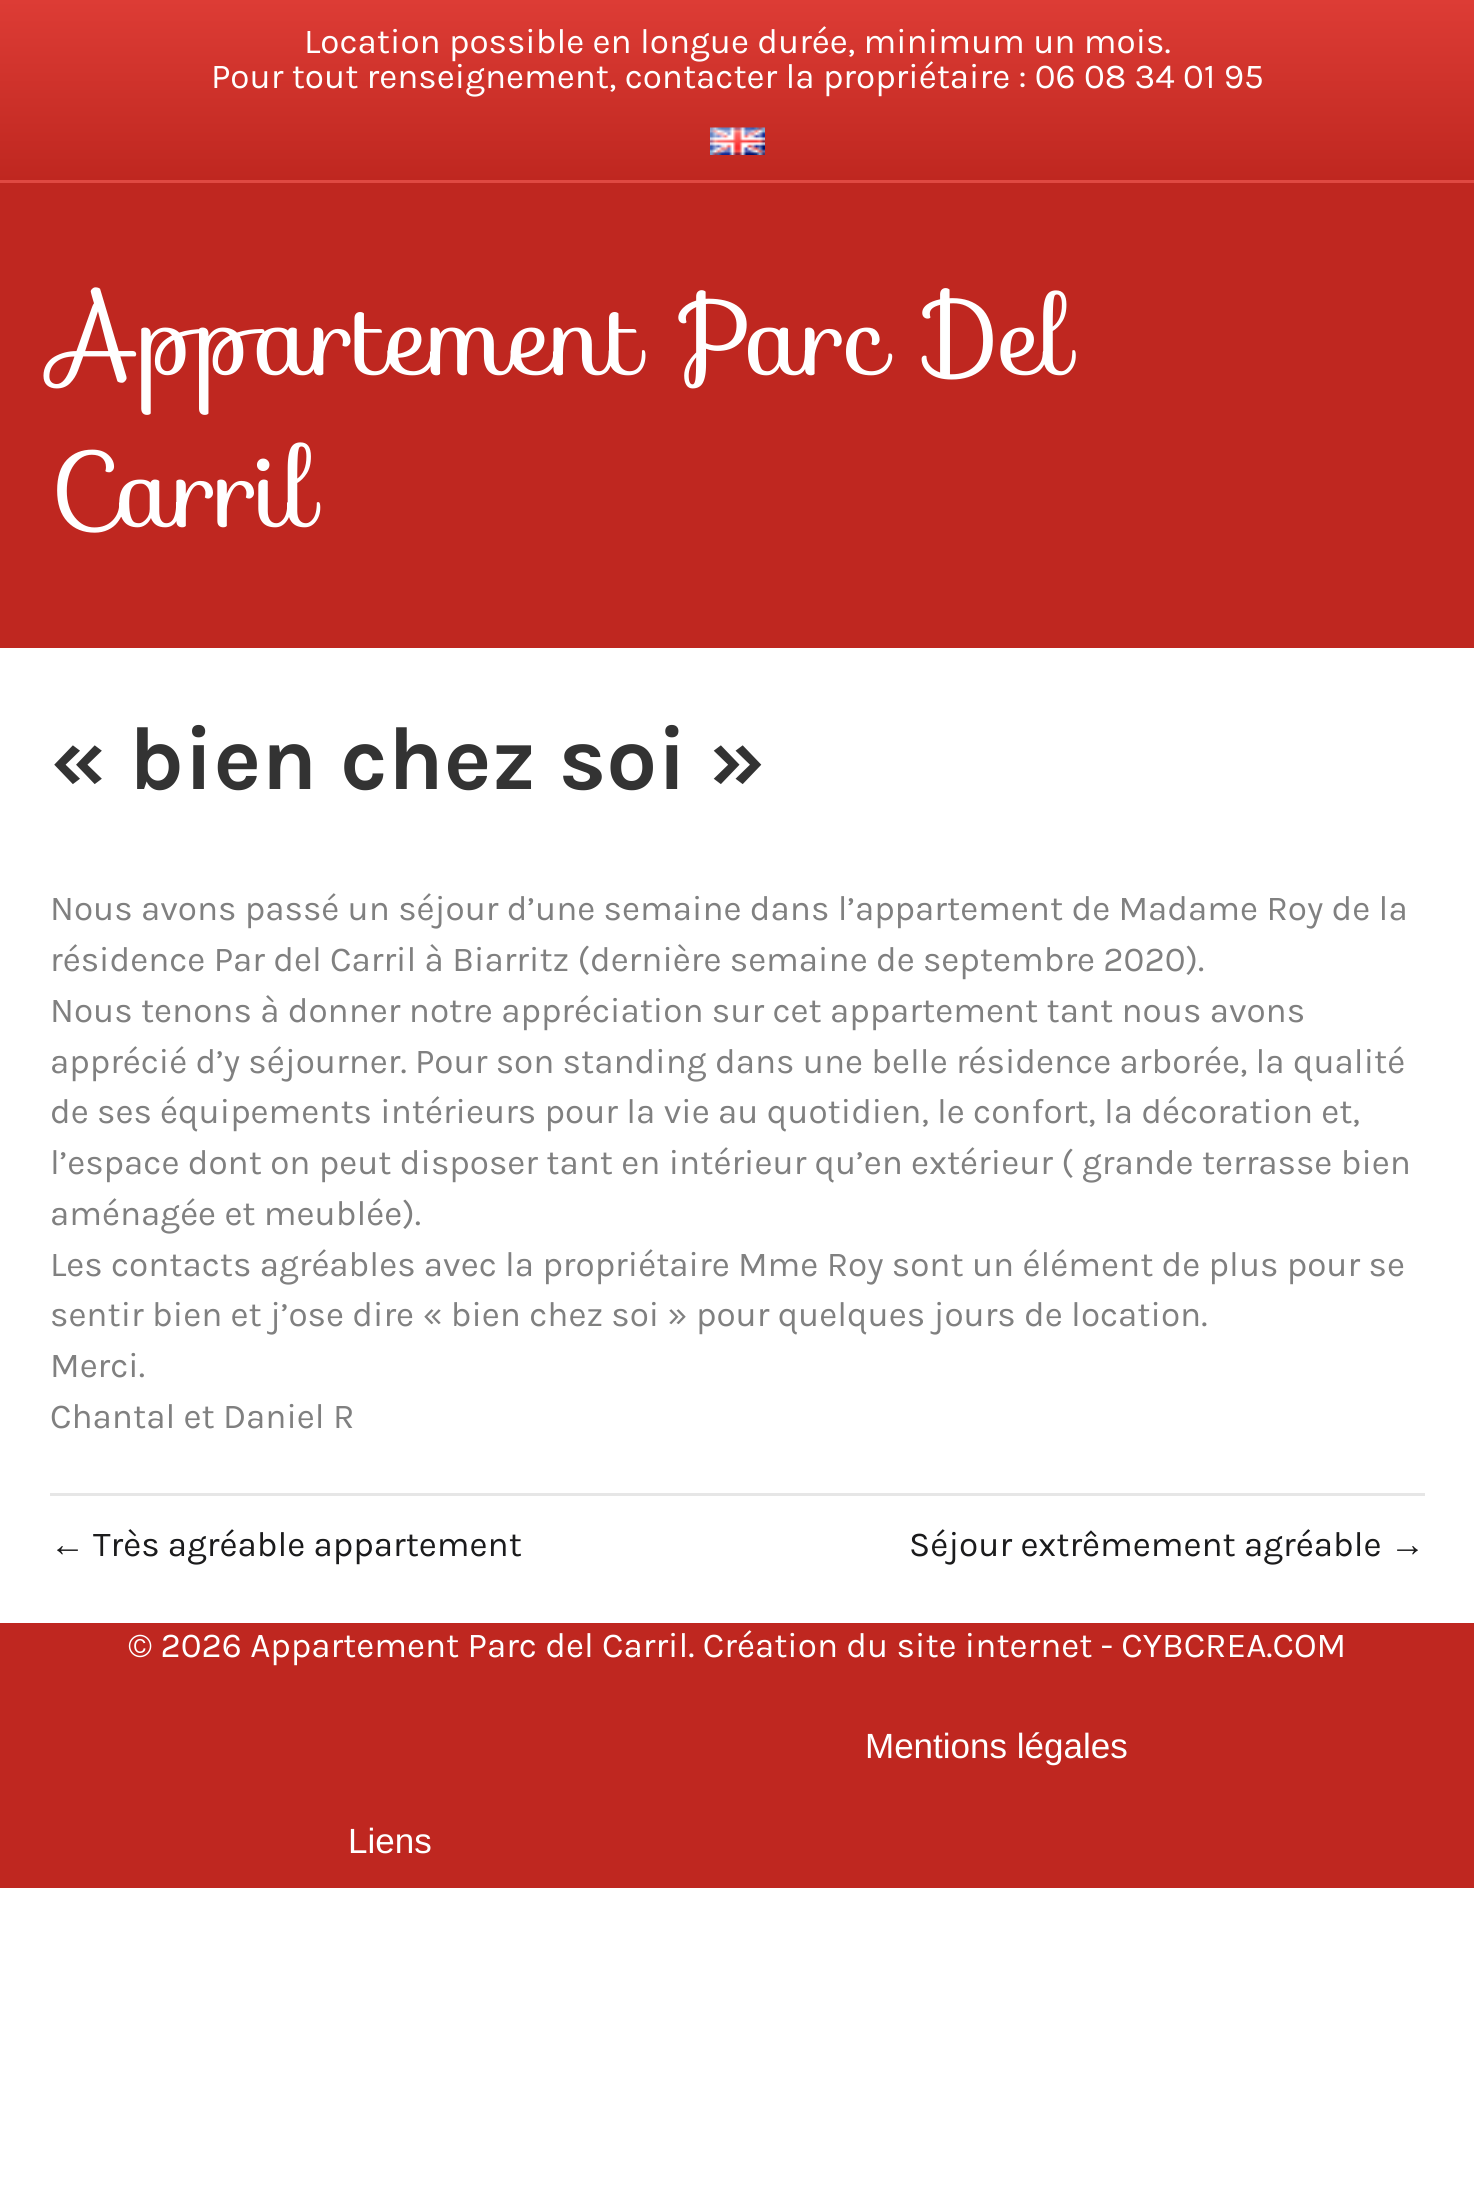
#include <cairo.h>
#include <math.h>
#include <stddef.h>

static cairo_t *c;
static void C(unsigned color){cairo_set_source_rgb(c, (color >> 16) / 255.0, (color >> 8 & 255) / 255.0, (color & 255) / 255.0);}
static void F(const char *family, double size, int italic, int bold){cairo_select_font_face(c, family, italic ? CAIRO_FONT_SLANT_ITALIC : CAIRO_FONT_SLANT_NORMAL,bold ? CAIRO_FONT_WEIGHT_BOLD : CAIRO_FONT_WEIGHT_NORMAL);cairo_set_font_size(c, size);}
static void T(double x, double y, const char *s){cairo_move_to(c, x, y);cairo_show_text(c, s);}
static void R(double x, double y, double w, double h){cairo_rectangle(c, x, y, w, h);cairo_fill(c);}
static void I(const char *path, double x, double y, double w, double h){cairo_surface_t *image = cairo_image_surface_create_from_png(path);cairo_save(c);cairo_set_source_surface(c, image, x, y);cairo_rectangle(c, x, y, w, h);cairo_fill(c);cairo_restore(c);cairo_surface_destroy(image);}
int main(void) {
cairo_surface_t *surface = cairo_image_surface_create(CAIRO_FORMAT_RGB24, 1474, 2197);
c = cairo_create(surface);
cairo_font_options_t *options = cairo_font_options_create();
cairo_font_options_set_hint_metrics(options, CAIRO_HINT_METRICS_OFF);
cairo_font_options_set_hint_style(options, CAIRO_HINT_STYLE_NONE);
cairo_set_font_options(c, options);
cairo_set_miter_limit(c, 4);
cairo_pattern_t *gradient;
C(0xffffff);
cairo_paint(c);
gradient = cairo_pattern_create_linear(738,0,738,180);
cairo_pattern_add_color_stop_rgba(gradient,0,0.867,0.235,0.208,1);
cairo_pattern_add_color_stop_rgba(gradient,1,0.749,0.153,0.125,1);
cairo_set_source(c,gradient);
cairo_pattern_destroy(gradient);
R(0,0,1474,180);
C(0xdf4942);
R(0,180,1474,3);
F("Karla",35,0,0);
C(0xffffff);
T(304,53,"Location possible en longue durée, minimum un mois.");
T(211,88,"Pour tout renseignement, contacter la propriétaire : 06 08 34 01 95");
I("1.png",710,127,55,28);
C(0xbf2720);
R(0,183,1474,465);
F("Sofia",105,0,0);
C(0xffffff);
T(50,375,"Appartement Parc Del");
T(50,527,"Carril");
F("Karla",90,0,1);
C(0x333333);
T(50,789,"« bien chez soi »");
F("Karla",35,0,0);
C(0x808080);
T(50,920,"Nous avons passé un séjour d’une semaine dans l’appartement de Madame Roy de la");
T(50,971,"résidence Par del Carril à Biarritz (dernière semaine de septembre 2020).");
T(50,1022,"Nous tenons à donner notre appréciation sur cet appartement tant nous avons");
T(50,1073,"apprécié d’y séjourner. Pour son standing dans une belle résidence arborée, la qualité");
T(50,1123,"de ses équipements intérieurs pour la vie au quotidien, le confort, la décoration et,");
T(50,1174,"l’espace dont on peut disposer tant en intérieur qu’en extérieur ( grande terrasse bien");
T(50,1225,"aménagée et meublée).");
T(50,1276,"Les contacts agréables avec la propriétaire Mme Roy sont un élément de plus pour se");
T(50,1326,"sentir bien et j’ose dire « bien chez soi » pour quelques jours de location.");
T(50,1377,"Merci.");
T(50,1428,"Chantal et Daniel R");
C(0xe6e6e6);
R(50,1493,1375,3);
F("Liberation Sans",35,0,0);
C(0x1b1b1c);
T(50,1556,"←");
F("Karla",35,0,0);
T(93,1556,"Très agréable appartement");
T(909,1556,"Séjour extrêmement agréable");
F("Liberation Sans",35,0,0);
T(1390,1556,"→");
C(0xbf2720);
R(0,1623,1474,265);
F("Karla",35,0,0);
C(0xffffff);
T(128,1657,"© 2026 Appartement Parc del Carril. Création du site internet - CYBCREA.COM");
F("Liberation Sans",35,0,0);
T(865,1758,"Mentions légales");
T(348,1853,"Liens");
cairo_surface_write_to_png(surface, "o.png");
cairo_font_options_destroy(options);
cairo_destroy(c);
cairo_surface_destroy(surface);
return 0;
}
